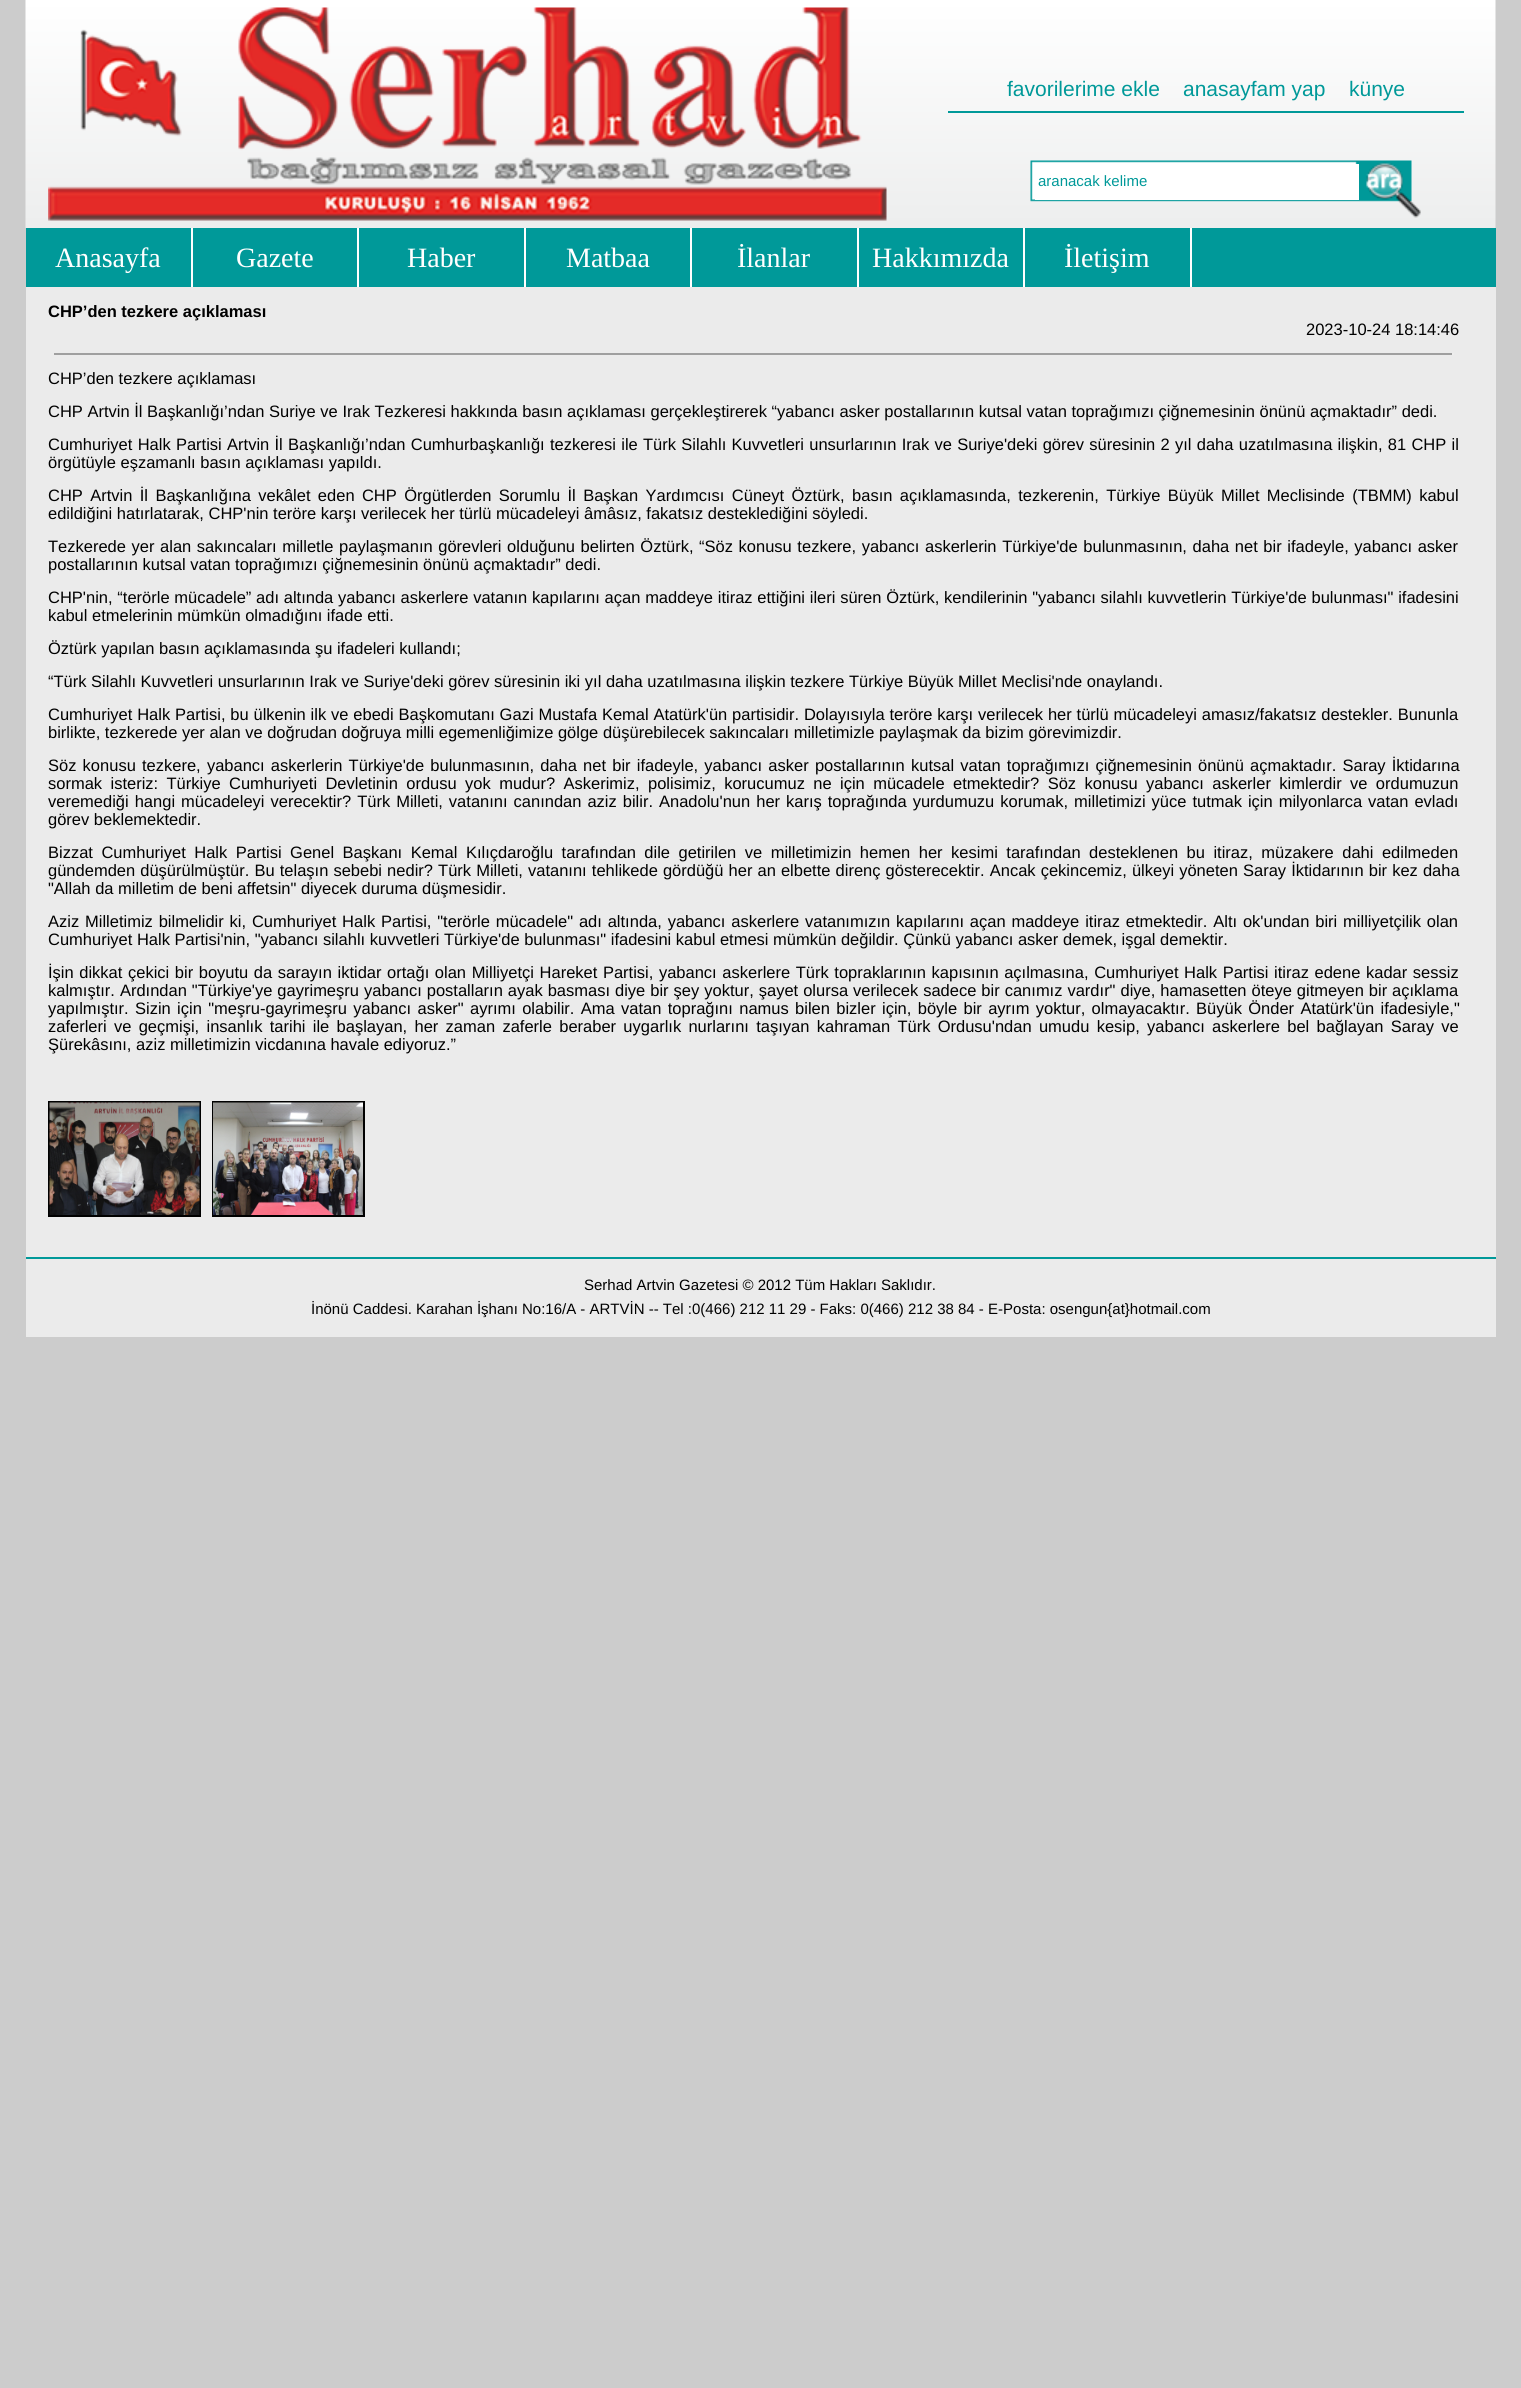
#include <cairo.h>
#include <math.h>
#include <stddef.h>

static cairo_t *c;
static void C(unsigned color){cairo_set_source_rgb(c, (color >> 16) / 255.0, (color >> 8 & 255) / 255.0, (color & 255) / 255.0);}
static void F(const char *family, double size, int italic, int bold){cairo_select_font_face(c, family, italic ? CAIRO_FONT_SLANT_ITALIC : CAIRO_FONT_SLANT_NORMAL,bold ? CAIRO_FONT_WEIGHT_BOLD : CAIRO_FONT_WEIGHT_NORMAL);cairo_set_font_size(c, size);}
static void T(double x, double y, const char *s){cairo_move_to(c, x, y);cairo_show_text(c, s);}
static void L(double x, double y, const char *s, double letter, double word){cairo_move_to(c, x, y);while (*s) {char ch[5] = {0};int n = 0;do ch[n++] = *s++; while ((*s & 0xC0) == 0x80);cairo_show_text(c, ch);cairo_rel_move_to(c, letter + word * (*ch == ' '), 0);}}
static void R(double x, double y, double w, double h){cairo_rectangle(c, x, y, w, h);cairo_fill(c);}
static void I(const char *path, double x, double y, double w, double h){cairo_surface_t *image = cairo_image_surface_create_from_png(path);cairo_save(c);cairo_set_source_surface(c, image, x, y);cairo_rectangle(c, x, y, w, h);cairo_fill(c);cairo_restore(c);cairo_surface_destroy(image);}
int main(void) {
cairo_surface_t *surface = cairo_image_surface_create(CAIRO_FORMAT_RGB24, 1521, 2388);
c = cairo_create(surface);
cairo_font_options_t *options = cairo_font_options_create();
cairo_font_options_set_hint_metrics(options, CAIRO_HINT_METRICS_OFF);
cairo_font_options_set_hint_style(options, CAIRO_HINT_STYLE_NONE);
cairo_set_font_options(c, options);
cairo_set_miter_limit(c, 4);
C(0xcccccc);
cairo_paint(c);
I("1.png",25,0,1471,228);
I("2.png",48,7,839,214);
C(0x009999);
R(948,111,516,2);
F("Liberation Sans",21,0,0);
T(1007,96,"favorilerime ekle");
T(1183,96,"anasayfam yap");
T(1349,96,"künye");
I("3.png",1030,160,391,58);
C(0xffffff);
R(1035,164,324,36);
F("Liberation Sans",15,0,0);
C(0x009999);
T(1038,186,"aranacak kelime");
R(26,228,1470,59);
C(0xffffff);
R(191,228,2,59);
F("Liberation Serif",28,0,0);
T(55,267,"Anasayfa");
R(357,228,2,59);
T(236,267,"Gazete");
R(524,228,2,59);
T(407,267,"Haber");
R(690,228,2,59);
T(566,267,"Matbaa");
R(857,228,2,59);
T(737,267,"İlanlar");
R(1023,228,2,59);
T(872,267,"Hakkımızda");
R(1190,228,2,59);
T(1064,267,"İletişim");
C(0xebebeb);
R(26,287,1470,970);
F("Liberation Sans",16.5,0,1);
C(0x000000);
T(48,317,"CHP’den tezkere açıklaması");
F("Liberation Sans",16.5,0,0);
T(1306,335,"2023-10-24 18:14:46");
C(0x9f9f9f);
R(54,353,1400,2);
C(0xeeeeee);
R(1452,353,2,2);
C(0x000000);
T(48,384,"CHP’den tezkere açıklaması");
T(48,417,"CHP Artvin İl Başkanlığı’ndan Suriye ve Irak Tezkeresi hakkında basın açıklaması gerçekleştirerek “yabancı asker postallarının kutsal vatan toprağımızı çiğnemesinin önünü açmaktadır” dedi.");
L(48,450,"Cumhuriyet Halk Partisi Artvin İl Başkanlığı’ndan Cumhurbaşkanlığı tezkeresi ile Türk Silahlı Kuvvetleri unsurlarının Irak ve Suriye'deki görev süresinin 2 yıl daha uzatılmasına ilişkin, 81 CHP il",0,.7);
T(48,468,"örgütüyle eşzamanlı basın açıklaması yapıldı.");
L(48,501,"CHP Artvin İl Başkanlığına vekâlet eden CHP Örgütlerden Sorumlu İl Başkan Yardımcısı Cüneyt Öztürk, basın açıklamasında, tezkerenin, Türkiye Büyük Millet Meclisinde (TBMM) kabul",0,2.8);
T(48,519,"edildiğini hatırlatarak, CHP'nin teröre karşı verilecek her türlü mücadeleyi âmâsız, fakatsız desteklediğini söyledi.");
L(48,552,"Tezkerede yer alan sakıncaları milletle paylaşmanın görevleri olduğunu belirten Öztürk, “Söz konusu tezkere, yabancı askerlerin Türkiye'de bulunmasının, daha net bir ifadeyle, yabancı asker",0,1);
T(48,570,"postallarının kutsal vatan toprağımızı çiğnemesinin önünü açmaktadır” dedi.");
L(48,603,"CHP'nin, “terörle mücadele” adı altında yabancı askerlere vatanın kapılarını açan maddeye itiraz ettiğini ileri süren Öztürk, kendilerinin \"yabancı silahlı kuvvetlerin Türkiye'de bulunması\" ifadesini",0,.15);
T(48,621,"kabul etmelerinin mümkün olmadığını ifade etti.");
T(48,654,"Öztürk yapılan basın açıklamasında şu ifadeleri kullandı;");
T(48,687,"“Türk Silahlı Kuvvetleri unsurlarının Irak ve Suriye'deki görev süresinin iki yıl daha uzatılmasına ilişkin tezkere Türkiye Büyük Millet Meclisi'nde onaylandı.");
L(48,720,"Cumhuriyet Halk Partisi, bu ülkenin ilk ve ebedi Başkomutanı Gazi Mustafa Kemal Atatürk'ün partisidir. Dolayısıyla teröre karşı verilecek her türlü mücadeleyi amasız/fakatsız destekler. Bununla",0,.25);
T(48,738,"birlikte, tezkerede yer alan ve doğrudan doğruya milli egemenliğimize gölge düşürebilecek sakıncaları milletimizle paylaşmak da bizim görevimizdir.");
L(48,771,"Söz konusu tezkere, yabancı askerlerin Türkiye'de bulunmasının, daha net bir ifadeyle, yabancı asker postallarının kutsal vatan toprağımızı çiğnemesinin önünü açmaktadır. Saray İktidarına",0,1.6);
L(48,789,"sormak isteriz: Türkiye Cumhuriyeti Devletinin ordusu yok mudur? Askerimiz, polisimiz, korucumuz ne için mücadele etmektedir? Söz konusu yabancı askerler kimlerdir ve ordumuzun",0,3.8);
L(48,807,"veremediği hangi mücadeleyi verecektir? Türk Milleti, vatanını canından aziz bilir. Anadolu'nun her karış toprağında yurdumuzu korumak, milletimizi yüce tutmak için milyonlarca vatan evladı",0,1.4);
T(48,825,"görev beklemektedir.");
L(48,858,"Bizzat Cumhuriyet Halk Partisi Genel Başkanı Kemal Kılıçdaroğlu tarafından dile getirilen ve milletimizin hemen her kesimi tarafından desteklenen bu itiraz, müzakere dahi edilmeden",0,3.9);
L(48,876,"gündemden düşürülmüştür. Bu telaşın sebebi nedir? Türk Milleti, vatanını tehlikede gördüğü her an elbette direnç gösterecektir. Ancak çekincemiz, ülkeyi yöneten Saray İktidarının bir kez daha",0,.5);
T(48,894,"\"Allah da milletim de beni affetsin\" diyecek duruma düşmesidir.");
L(48,927,"Aziz Milletimiz bilmelidir ki, Cumhuriyet Halk Partisi, \"terörle mücadele\" adı altında, yabancı askerlere vatanımızın kapılarını açan maddeye itiraz etmektedir. Altı ok'undan biri milliyetçilik olan",0,1.25);
T(48,945,"Cumhuriyet Halk Partisi'nin, \"yabancı silahlı kuvvetleri Türkiye'de bulunması\" ifadesini kabul etmesi mümkün değildir. Çünkü yabancı asker demek, işgal demektir.");
L(48,978,"İşin dikkat çekici bir boyutu da sarayın iktidar ortağı olan Milliyetçi Hareket Partisi, yabancı askerlere Türk topraklarının kapısının açılmasına, Cumhuriyet Halk Partisi itiraz edene kadar sessiz",0,1);
L(48,996,"kalmıştır. Ardından \"Türkiye'ye gayrimeşru yabancı postalların ayak basması diye bir şey yoktur, şayet olursa verilecek sadece bir canımız vardır\" diye, hamasetten öteye gitmeyen bir açıklama",0,.4);
L(48,1014,"yapılmıştır. Sizin için \"meşru-gayrimeşru yabancı asker\" ayrımı olabilir. Ama vatan toprağını namus bilen bizler için, böyle bir ayrım yoktur, olmayacaktır. Büyük Önder Atatürk'ün ifadesiyle,\"",0,1.75);
L(48,1032,"zaferleri ve geçmişi, insanlık tarihi ile başlayan, her zaman zaferle beraber uygarlık nurlarını taşıyan kahraman Türk Ordusu'ndan umudu kesip, yabancı askerlere bel bağlayan Saray ve",0,2.7);
T(48,1050,"Şürekâsını, aziz milletimizin vicdanına havale ediyoruz.”");
cairo_rectangle(c,49,1102,151,114);
cairo_stroke(c);
cairo_rectangle(c,213,1102,151,114);
cairo_stroke(c);
I("4.png",49,1102,151,113);
I("5.png",213,1102,150,113);
C(0xebebeb);
R(26,1259,1470,78);
C(0x009999);
R(26,1257,1470,2);
F("Liberation Sans",15,0,0);
C(0x000000);
T(584,1290,"Serhad Artvin Gazetesi © 2012 Tüm Hakları Saklıdır.");
T(311,1314,"İnönü Caddesi. Karahan İşhanı No:16/A - ARTVİN -- Tel :0(466) 212 11 29 - Faks: 0(466) 212 38 84 - E-Posta: osengun{at}hotmail.com");
cairo_surface_write_to_png(surface, "o.png");
cairo_font_options_destroy(options);
cairo_destroy(c);
cairo_surface_destroy(surface);
return 0;
}
